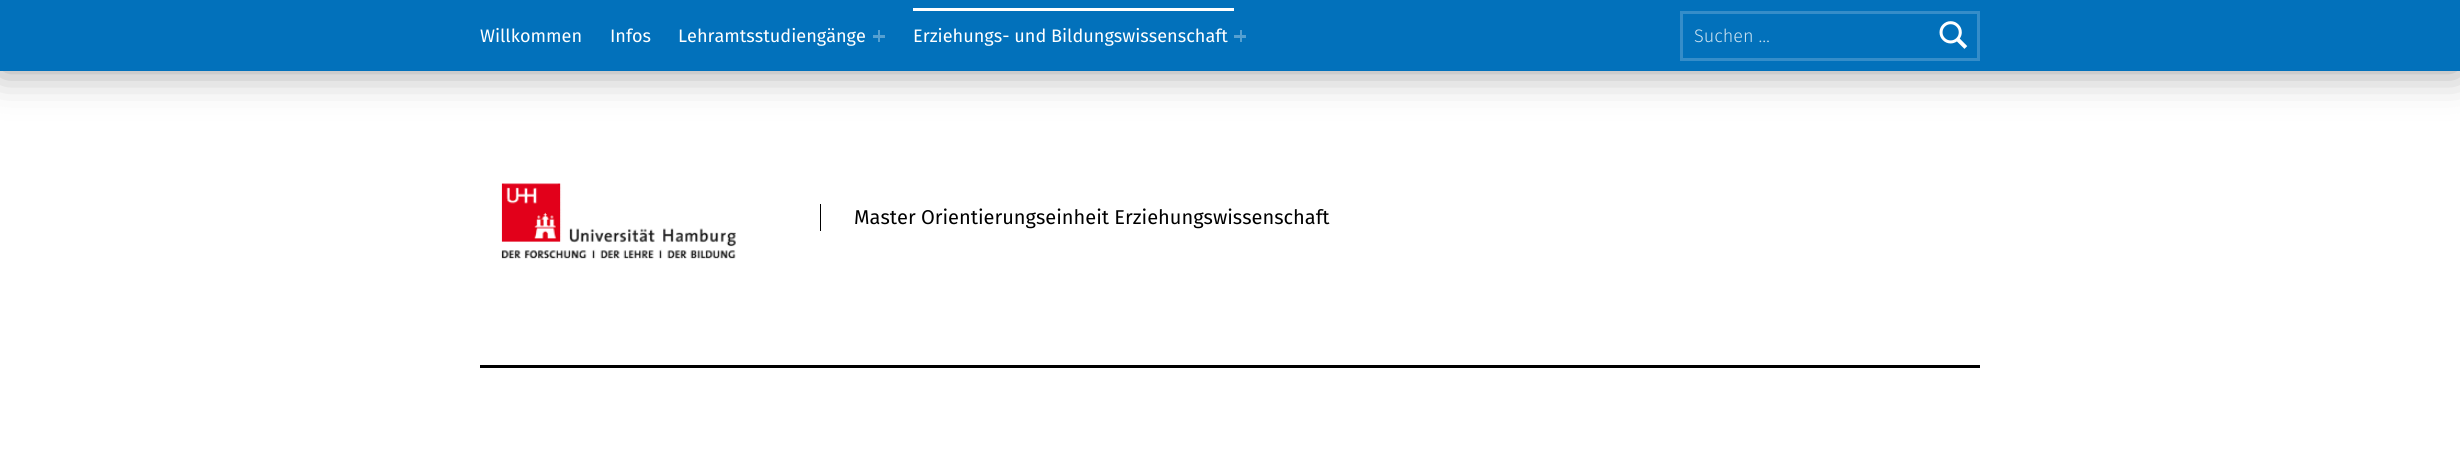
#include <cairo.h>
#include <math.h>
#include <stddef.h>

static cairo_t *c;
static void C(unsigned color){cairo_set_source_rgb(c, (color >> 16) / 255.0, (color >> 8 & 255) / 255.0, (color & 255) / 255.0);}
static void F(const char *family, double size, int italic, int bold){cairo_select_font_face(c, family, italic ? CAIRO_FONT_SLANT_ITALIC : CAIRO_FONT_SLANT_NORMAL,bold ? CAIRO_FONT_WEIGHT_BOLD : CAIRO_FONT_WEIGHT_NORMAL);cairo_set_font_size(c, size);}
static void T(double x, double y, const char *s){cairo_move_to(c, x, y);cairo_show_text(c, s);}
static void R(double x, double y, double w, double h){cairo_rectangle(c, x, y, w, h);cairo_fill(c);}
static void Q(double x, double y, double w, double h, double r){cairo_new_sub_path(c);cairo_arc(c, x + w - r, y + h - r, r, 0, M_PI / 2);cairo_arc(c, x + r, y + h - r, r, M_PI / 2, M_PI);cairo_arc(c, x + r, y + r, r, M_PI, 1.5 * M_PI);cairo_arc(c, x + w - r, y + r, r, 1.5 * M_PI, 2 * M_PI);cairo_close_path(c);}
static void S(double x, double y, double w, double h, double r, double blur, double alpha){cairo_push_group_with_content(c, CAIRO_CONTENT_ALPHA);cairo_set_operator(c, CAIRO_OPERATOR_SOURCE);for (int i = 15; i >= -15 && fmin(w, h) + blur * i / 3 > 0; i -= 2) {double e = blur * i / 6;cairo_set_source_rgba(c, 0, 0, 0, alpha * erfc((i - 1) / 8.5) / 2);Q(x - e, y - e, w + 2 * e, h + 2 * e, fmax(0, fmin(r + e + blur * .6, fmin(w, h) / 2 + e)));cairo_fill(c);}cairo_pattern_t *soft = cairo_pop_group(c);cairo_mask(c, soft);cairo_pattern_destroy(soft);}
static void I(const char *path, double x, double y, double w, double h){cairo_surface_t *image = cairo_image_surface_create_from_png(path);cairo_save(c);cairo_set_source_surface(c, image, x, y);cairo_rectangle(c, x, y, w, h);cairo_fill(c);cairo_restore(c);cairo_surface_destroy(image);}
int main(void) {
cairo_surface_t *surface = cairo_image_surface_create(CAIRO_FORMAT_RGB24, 2460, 464);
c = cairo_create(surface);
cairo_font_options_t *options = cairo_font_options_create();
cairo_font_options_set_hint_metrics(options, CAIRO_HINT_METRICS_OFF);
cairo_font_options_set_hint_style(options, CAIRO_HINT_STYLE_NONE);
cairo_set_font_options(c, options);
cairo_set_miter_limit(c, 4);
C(0xffffff);
cairo_paint(c);
C(0x000000);
S(0,0,2460,71,0,20,.4);
C(0x0271bb);
R(0,0,2460,71);
F("Fira Sans",18.1,0,0);
C(0xffffff);
T(480,42,"Willkommen");
T(610,42,"Infos");
T(678,42,"Lehramtsstudiengänge");
C(0x55a0d1);
R(873,35,12,3);
R(878,30,2,12);
C(0xffffff);
R(913,8,321,3);
T(913,42,"Erziehungs- und Bildungswissenschaft");
C(0x55a0d1);
R(1234,35,12,3);
R(1240,30,2,12);
cairo_rectangle(c,1681.5,12.5,297,47);
C(0x358dc9);
cairo_set_line_width(c,3);
cairo_stroke(c);
F("Fira Sans Light",18.1,0,0);
C(0xcce3f1);
T(1694,42,"Suchen …");
I("1.png",1939,21,29,28);
I("2.png",501,183,235,76);
C(0x000000);
R(820,204,1,27);
F("Fira Sans",20,0,0);
T(854,224,"Master Orientierungseinheit Erziehungswissenschaft");
R(480,365,1500,3);
cairo_surface_write_to_png(surface, "o.png");
cairo_font_options_destroy(options);
cairo_destroy(c);
cairo_surface_destroy(surface);
return 0;
}
